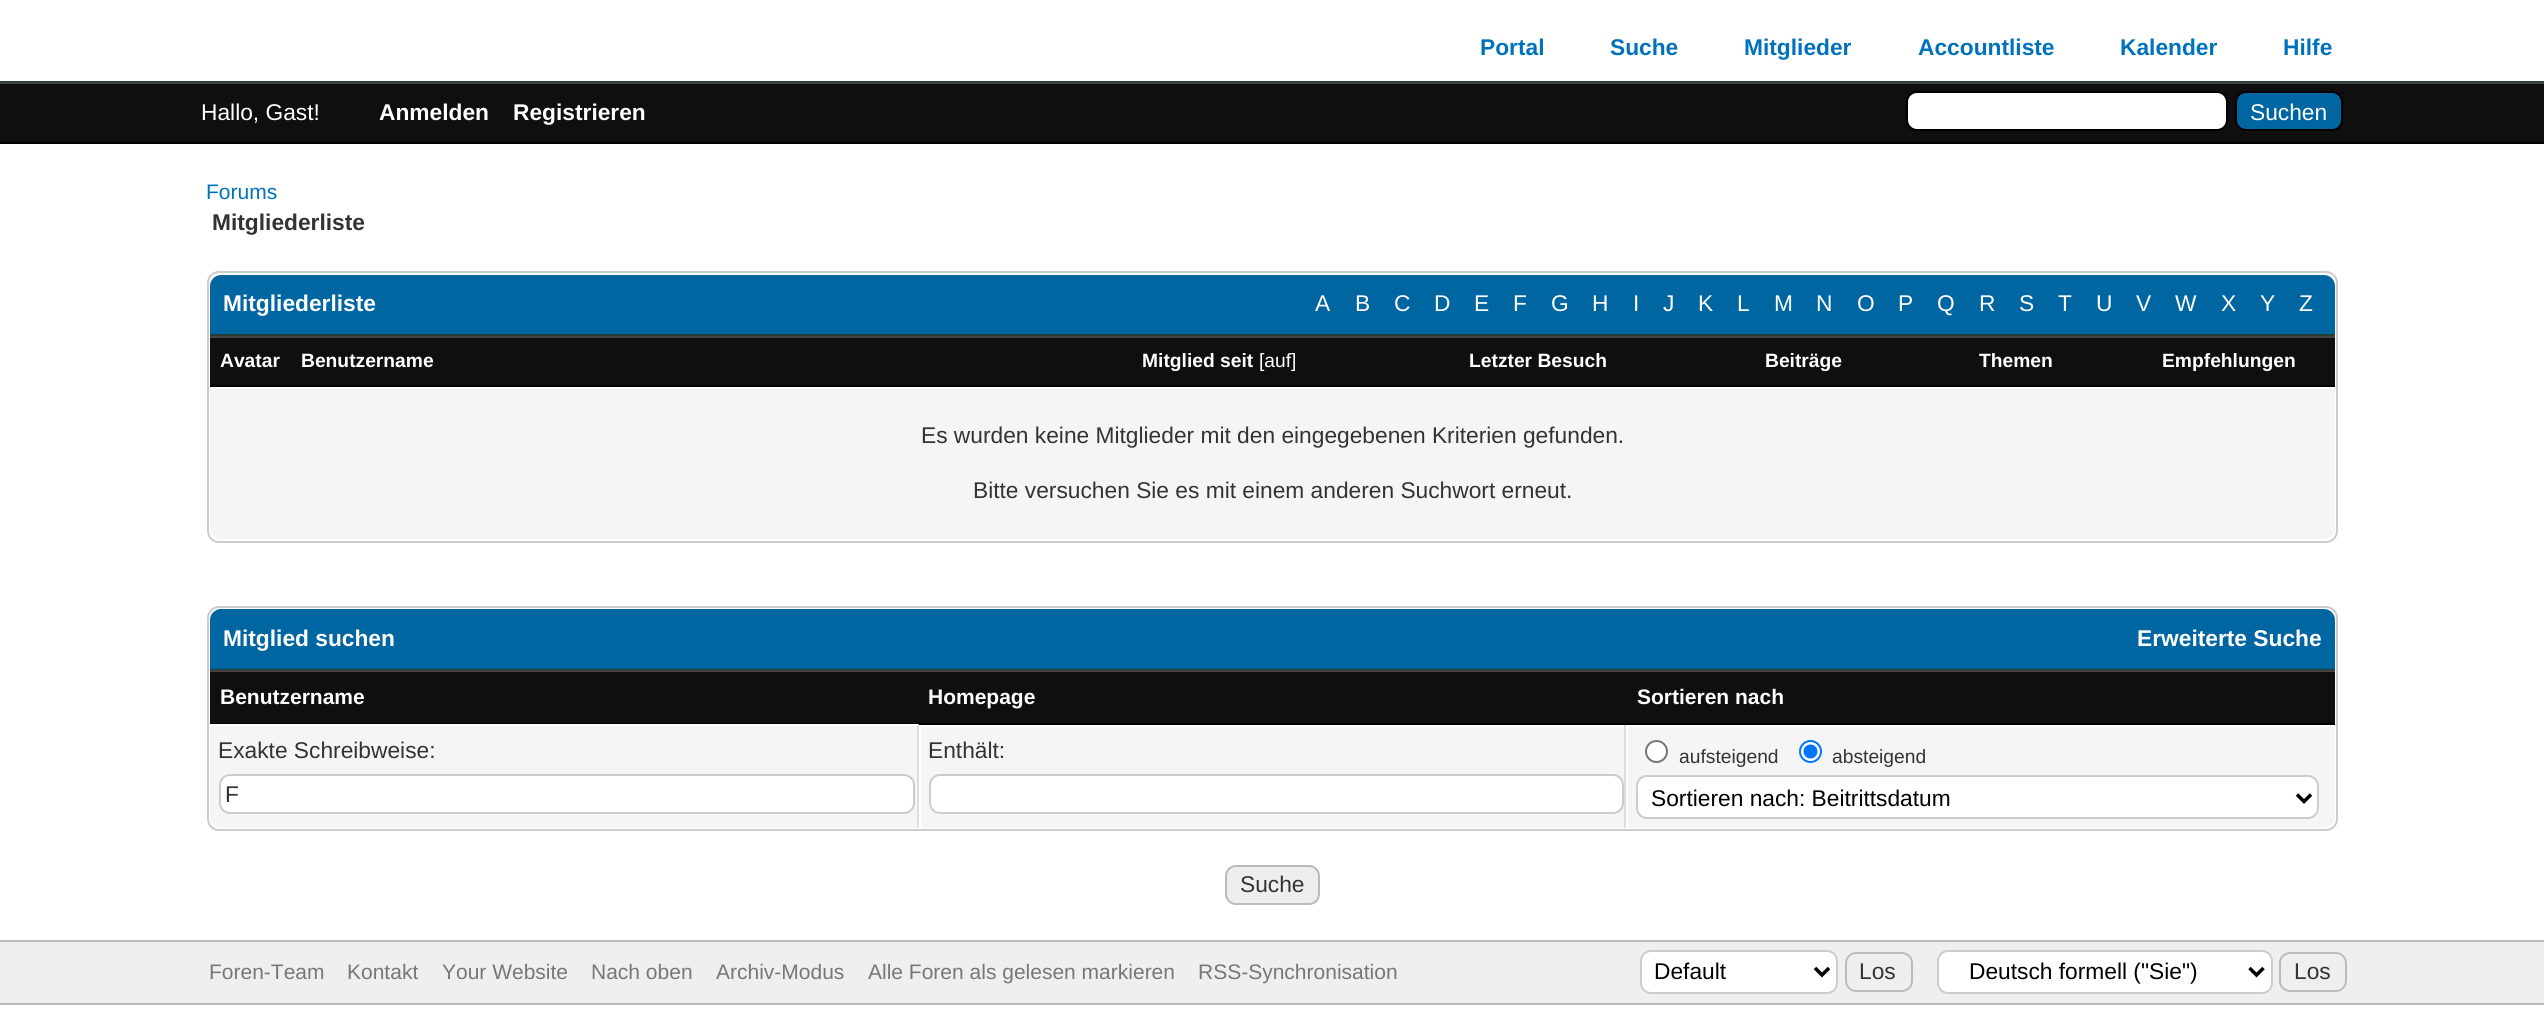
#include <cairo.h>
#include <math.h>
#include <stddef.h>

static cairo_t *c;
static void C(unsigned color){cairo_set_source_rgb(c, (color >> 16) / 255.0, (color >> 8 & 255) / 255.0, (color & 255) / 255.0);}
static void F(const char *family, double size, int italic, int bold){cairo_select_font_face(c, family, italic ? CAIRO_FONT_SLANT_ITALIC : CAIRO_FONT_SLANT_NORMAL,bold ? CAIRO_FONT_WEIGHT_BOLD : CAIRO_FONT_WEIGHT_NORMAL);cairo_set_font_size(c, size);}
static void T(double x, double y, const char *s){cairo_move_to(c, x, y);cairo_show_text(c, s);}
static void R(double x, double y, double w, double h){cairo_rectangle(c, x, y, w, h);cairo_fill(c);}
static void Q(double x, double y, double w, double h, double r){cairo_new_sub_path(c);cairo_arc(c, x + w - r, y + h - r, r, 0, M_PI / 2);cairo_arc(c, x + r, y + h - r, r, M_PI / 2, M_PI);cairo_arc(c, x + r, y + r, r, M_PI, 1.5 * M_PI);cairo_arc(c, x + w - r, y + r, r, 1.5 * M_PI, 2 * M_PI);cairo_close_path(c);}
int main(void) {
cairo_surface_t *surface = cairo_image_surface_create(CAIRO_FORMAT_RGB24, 2544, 1015);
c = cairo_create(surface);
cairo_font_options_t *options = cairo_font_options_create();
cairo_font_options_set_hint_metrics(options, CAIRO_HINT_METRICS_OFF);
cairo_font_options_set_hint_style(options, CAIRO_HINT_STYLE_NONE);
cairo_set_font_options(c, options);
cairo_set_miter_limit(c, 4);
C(0xffffff);
cairo_paint(c);
C(0x263c30);
R(0,81,2544,1);
F("Liberation Sans",22.75,0,1);
C(0x0072bc);
T(1480,55,"Portal");
T(1610,55,"Suche");
T(1744,55,"Mitglieder");
T(1918,55,"Accountliste");
T(2120,55,"Kalender");
T(2283,55,"Hilfe");
C(0x0f0f0f);
R(0,84,2544,58);
C(0x444444);
R(0,82,2544,2);
C(0x000000);
R(0,142,2544,2);
F("Liberation Sans",22.75,0,0);
C(0xffffff);
T(201,120,"Hallo, Gast!");
F("Liberation Sans",22.75,0,1);
T(379,120,"Anmelden");
T(513,120,"Registrieren");
Q(1907,92,320,38,10);
cairo_fill_preserve(c);
C(0x000000);
cairo_stroke(c);
C(0x0066a2);
Q(2236,92,106,38,10);
cairo_fill_preserve(c);
C(0x000000);
cairo_stroke(c);
F("Liberation Sans",22.75,0,0);
C(0xffffff);
T(2250,120,"Suchen");
F("Liberation Sans",21,0,0);
C(0x0072bc);
T(206,199,"Forums");
F("Liberation Sans",22.75,0,1);
C(0x333333);
T(212,230,"Mitgliederliste");
Q(208,272,2129,270,11);
C(0xcccccc);
cairo_stroke(c);
C(0x0066a2);
cairo_new_path(c);
cairo_move_to(c,221,275);
cairo_line_to(c,2324,275);
cairo_curve_to(c,2330,275,2335,280,2335,286);
cairo_line_to(c,2335,336);
cairo_line_to(c,210,336);
cairo_line_to(c,210,286);
cairo_curve_to(c,210,280,215,275,221,275);
cairo_close_path(c);
cairo_fill(c);
C(0x263c30);
R(210,334,2125,2);
C(0xffffff);
T(223,311,"Mitgliederliste");
F("Liberation Sans",22.75,0,0);
T(1315,311,"A");
T(1355,311,"B");
T(1394,311,"C");
T(1434,311,"D");
T(1474,311,"E");
T(1513,311,"F");
T(1551,311,"G");
T(1592,311,"H");
T(1633,311,"I");
T(1663,311,"J");
T(1698,311,"K");
T(1737,311,"L");
T(1774,311,"M");
T(1816,311,"N");
T(1857,311,"O");
T(1898,311,"P");
T(1937,311,"Q");
T(1979,311,"R");
T(2019,311,"S");
T(2058,311,"T");
T(2096,311,"U");
T(2136,311,"V");
T(2175,311,"W");
T(2221,311,"X");
T(2260,311,"Y");
T(2299,311,"Z");
C(0x0f0f0f);
R(210,338,2125,47);
C(0x444444);
R(210,336,2125,2);
C(0x000000);
R(210,385,2125,2);
F("Liberation Sans",19.25,0,1);
C(0xffffff);
T(220,367,"Avatar");
T(301,367,"Benutzername");
T(1142,367,"Mitglied seit");
F("Liberation Sans",19.25,0,0);
T(1259,367,"[auf]");
F("Liberation Sans",19.25,0,1);
T(1469,367,"Letzter Besuch");
T(1765,367,"Beiträge");
T(1979,367,"Themen");
T(2162,367,"Empfehlungen");
C(0xf5f5f5);
cairo_new_path(c);
cairo_move_to(c,210,387);
cairo_line_to(c,2335,387);
cairo_line_to(c,2335,528);
cairo_curve_to(c,2335,534,2330,539,2324,539);
cairo_line_to(c,221,539);
cairo_curve_to(c,215,539,210,534,210,528);
cairo_close_path(c);
cairo_fill(c);
C(0xffffff);
R(210,387,2125,2);
F("Liberation Sans",22.75,0,0);
C(0x333333);
T(921,443,"Es wurden keine Mitglieder mit den eingegebenen Kriterien gefunden.");
T(973,498,"Bitte versuchen Sie es mit einem anderen Suchwort erneut.");
Q(208,607,2129,223,11);
C(0xcccccc);
cairo_stroke(c);
C(0x0066a2);
cairo_new_path(c);
cairo_move_to(c,221,609);
cairo_line_to(c,2324,609);
cairo_curve_to(c,2330,609,2335,614,2335,620);
cairo_line_to(c,2335,670);
cairo_line_to(c,210,670);
cairo_line_to(c,210,620);
cairo_curve_to(c,210,614,215,609,221,609);
cairo_close_path(c);
cairo_fill(c);
C(0x263c30);
R(210,669,2125,1);
F("Liberation Sans",22.75,0,1);
C(0xffffff);
T(223,646,"Mitglied suchen");
T(2137,646,"Erweiterte Suche");
C(0x0f0f0f);
R(210,672,2125,51);
C(0x444444);
R(210,670,2125,2);
C(0x000000);
R(210,723,2125,2);
F("Liberation Sans",21,0,1);
C(0xffffff);
T(220,704,"Benutzername");
T(928,704,"Homepage");
T(1637,704,"Sortieren nach");
C(0xf5f5f5);
cairo_new_path(c);
cairo_move_to(c,210,725);
cairo_line_to(c,919,725);
cairo_line_to(c,919,828);
cairo_line_to(c,221,828);
cairo_curve_to(c,215,828,210,823,210,817);
cairo_close_path(c);
cairo_fill(c);
C(0xffffff);
cairo_new_path(c);
cairo_move_to(c,210,726);
cairo_line_to(c,917,726);
cairo_line_to(c,919,724);
cairo_line_to(c,210,724);
cairo_close_path(c);
cairo_fill(c);
C(0xdddddd);
cairo_new_path(c);
cairo_move_to(c,919,724);
cairo_line_to(c,919,828);
cairo_line_to(c,917,828);
cairo_line_to(c,917,726);
cairo_close_path(c);
cairo_fill(c);
F("Liberation Sans",22.75,0,0);
C(0x333333);
T(218,758,"Exakte Schreibweise:");
C(0xffffff);
Q(220,775,694,38,10);
cairo_fill_preserve(c);
C(0xcccccc);
cairo_stroke(c);
C(0x333333);
T(225,802,"F");
C(0xf5f5f5);
R(921,727,703,101);
C(0xdddddd);
R(1624,725,2,103);
C(0x333333);
T(928,758,"Enthält:");
C(0xffffff);
Q(930,775,693,38,10);
cairo_fill_preserve(c);
C(0xcccccc);
cairo_stroke(c);
C(0xf5f5f5);
cairo_new_path(c);
cairo_move_to(c,1626,725);
cairo_line_to(c,2335,725);
cairo_line_to(c,2335,817);
cairo_curve_to(c,2335,823,2330,828,2324,828);
cairo_line_to(c,1626,828);
cairo_close_path(c);
cairo_fill(c);
C(0xffffff);
R(1626,725,709,2);
R(1626,725,2,103);
cairo_arc(c,1656.5,751.5,10.5,0,2 * M_PI);
cairo_fill_preserve(c);
C(0x767676);
cairo_stroke(c);
F("Liberation Sans",19.25,0,0);
C(0x333333);
T(1679,763,"aufsteigend");
C(0xffffff);
cairo_new_path(c);
cairo_arc(c,1810.5,751.5,10.5,0,2 * M_PI);
cairo_fill_preserve(c);
C(0x0075ff);
cairo_stroke(c);
cairo_arc(c,1810.5,751.5,7,0,2 * M_PI);
cairo_fill(c);
C(0x333333);
T(1832,763,"absteigend");
C(0xffffff);
Q(1637,776,681,42,10);
cairo_fill_preserve(c);
C(0xcccccc);
cairo_stroke(c);
cairo_new_path(c);
cairo_move_to(c,2297,794.5);
cairo_line_to(c,2304,801.5);
cairo_line_to(c,2311,794.5);
C(0x000000);
cairo_set_line_width(c,3.5);
cairo_stroke(c);
F("Liberation Sans",22.75,0,0);
T(1651,806,"Sortieren nach: Beitrittsdatum");
C(0xeeeeee);
Q(1226,866,93,38,10);
cairo_fill_preserve(c);
C(0xbbbbbb);
cairo_set_line_width(c,2);
cairo_stroke(c);
C(0x333333);
T(1240,892,"Suche");
C(0xefefef);
R(0,942,2544,61);
C(0xbbbbbb);
R(0,940,2544,2);
R(0,1003,2544,2);
F("Liberation Sans",21,0,0);
C(0x777777);
T(209,979,"Foren-Team");
T(347,979,"Kontakt");
T(442,979,"Your Website");
T(591,979,"Nach oben");
T(716,979,"Archiv-Modus");
T(868,979,"Alle Foren als gelesen markieren");
T(1198,979,"RSS-Synchronisation");
C(0xffffff);
Q(1641,951,196,42,10);
cairo_fill_preserve(c);
C(0xcccccc);
cairo_stroke(c);
cairo_new_path(c);
cairo_move_to(c,1815,968);
cairo_line_to(c,1822,975);
cairo_line_to(c,1829,968);
C(0x000000);
cairo_set_line_width(c,3.5);
cairo_stroke(c);
F("Liberation Sans",22.75,0,0);
T(1654,979,"Default");
Q(1846,953,66,38,10);
C(0xbbbbbb);
cairo_set_line_width(c,2);
cairo_stroke(c);
C(0x333333);
T(1859,979,"Los");
C(0xffffff);
Q(1938,951,334,42,10);
cairo_fill_preserve(c);
C(0xcccccc);
cairo_stroke(c);
cairo_new_path(c);
cairo_move_to(c,2249.5,968);
cairo_line_to(c,2256.5,975);
cairo_line_to(c,2263.5,968);
C(0x000000);
cairo_set_line_width(c,3.5);
cairo_stroke(c);
T(1969,979,"Deutsch formell (\"Sie\")");
Q(2280,953,66,38,10);
C(0xbbbbbb);
cairo_set_line_width(c,2);
cairo_stroke(c);
C(0x333333);
T(2294,979,"Los");
cairo_surface_write_to_png(surface, "o.png");
cairo_font_options_destroy(options);
cairo_destroy(c);
cairo_surface_destroy(surface);
return 0;
}
